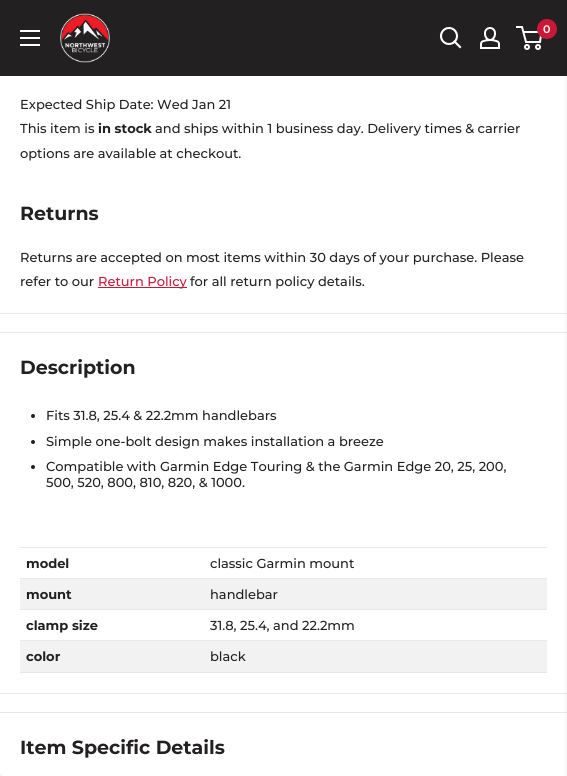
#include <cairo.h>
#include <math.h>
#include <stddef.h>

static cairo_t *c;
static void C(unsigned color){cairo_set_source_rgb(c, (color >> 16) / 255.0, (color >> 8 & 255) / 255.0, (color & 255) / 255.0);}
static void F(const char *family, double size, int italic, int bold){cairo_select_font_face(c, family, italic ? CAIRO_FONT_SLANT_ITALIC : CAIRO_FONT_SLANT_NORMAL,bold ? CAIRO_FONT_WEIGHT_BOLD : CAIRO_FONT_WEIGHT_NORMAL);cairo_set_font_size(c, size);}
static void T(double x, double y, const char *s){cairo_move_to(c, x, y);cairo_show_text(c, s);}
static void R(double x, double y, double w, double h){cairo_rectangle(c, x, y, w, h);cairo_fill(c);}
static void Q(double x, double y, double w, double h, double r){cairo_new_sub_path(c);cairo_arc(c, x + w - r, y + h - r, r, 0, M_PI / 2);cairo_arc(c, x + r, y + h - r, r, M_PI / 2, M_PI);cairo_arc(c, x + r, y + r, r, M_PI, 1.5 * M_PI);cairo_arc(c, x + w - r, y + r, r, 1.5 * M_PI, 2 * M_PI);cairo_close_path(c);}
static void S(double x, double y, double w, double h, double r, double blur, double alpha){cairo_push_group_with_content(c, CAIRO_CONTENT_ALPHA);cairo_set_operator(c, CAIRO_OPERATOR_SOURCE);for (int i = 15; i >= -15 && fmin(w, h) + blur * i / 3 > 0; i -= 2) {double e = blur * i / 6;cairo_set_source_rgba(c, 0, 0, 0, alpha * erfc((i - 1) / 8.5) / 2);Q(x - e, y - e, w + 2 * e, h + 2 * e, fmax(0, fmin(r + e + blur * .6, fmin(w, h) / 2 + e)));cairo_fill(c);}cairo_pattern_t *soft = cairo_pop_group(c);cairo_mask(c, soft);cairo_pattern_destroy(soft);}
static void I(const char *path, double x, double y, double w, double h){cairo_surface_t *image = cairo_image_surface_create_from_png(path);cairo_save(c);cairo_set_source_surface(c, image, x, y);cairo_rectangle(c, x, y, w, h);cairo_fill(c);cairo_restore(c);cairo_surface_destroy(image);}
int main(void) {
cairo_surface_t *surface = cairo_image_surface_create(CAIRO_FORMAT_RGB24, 567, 776);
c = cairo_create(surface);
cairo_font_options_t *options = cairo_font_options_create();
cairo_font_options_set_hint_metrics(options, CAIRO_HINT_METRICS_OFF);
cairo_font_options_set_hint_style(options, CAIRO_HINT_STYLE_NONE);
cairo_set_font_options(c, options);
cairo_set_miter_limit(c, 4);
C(0xffffff);
cairo_paint(c);
C(0x222021);
R(0,0,567,76);
I("1.png",20,30,20,16);
I("2.png",60,13,50,50);
cairo_new_path(c);
cairo_move_to(c,460,47);
cairo_line_to(c,454.5,41.5);
C(0xffffff);
cairo_set_line_width(c,2.1);
cairo_set_line_cap(c,CAIRO_LINE_CAP_SQUARE);
cairo_stroke(c);
cairo_arc(c,449,36,8,0,2 * M_PI);
cairo_set_line_cap(c,CAIRO_LINE_CAP_BUTT);
cairo_stroke(c);
I("3.png",480,27,20,22);
cairo_arc(c,527,47,2,0,2 * M_PI);
cairo_set_line_width(c,2);
cairo_stroke(c);
cairo_arc(c,538,47,2,0,2 * M_PI);
cairo_stroke(c);
cairo_new_path(c);
cairo_move_to(c,523.5,32);
cairo_line_to(c,541.5,32);
cairo_line_to(c,540,42);
cairo_line_to(c,526,42);
cairo_line_to(c,522,27);
cairo_line_to(c,516,27);
cairo_stroke(c);
C(0xcb1836);
cairo_arc(c,547,29,10,0,2 * M_PI);
cairo_fill(c);
F("Montserrat SemiBold",11,0,0);
C(0xffffff);
T(543,33,"0");
C(0xe8e8e8);
R(0,313,567,1);
F("Montserrat Medium",13,0,0);
C(0x222021);
T(20,109,"Expected Ship Date: Wed Jan 21");
T(20,133,"This item is");
F("Montserrat",13,0,1);
T(98,133,"in stock");
F("Montserrat Medium",13,0,0);
T(155,133,"and ships within 1 business day. Delivery times & carrier");
T(20,158,"options are available at checkout.");
F("Montserrat",19,0,1);
T(20,220,"Returns");
F("Montserrat Medium",13,0,0);
T(20,262,"Returns are accepted on most items within 30 days of your purchase. Please");
T(20,286,"refer to our");
C(0xcb1836);
R(98,287,89,1);
T(98,286,"Return Policy");
C(0x222021);
T(190,286,"for all return policy details.");
C(0xe8e8e8);
R(0,332,567,1);
R(0,693,567,1);
R(0,712,567,1);
C(0x000000);
S(567,2,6,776,0,2,.1);
F("Montserrat",19,0,1);
C(0x222021);
T(20,374,"Description");
cairo_new_path(c);
cairo_arc(c,33,416,2,0,2 * M_PI);
cairo_fill(c);
F("Montserrat Medium",13,0,0);
T(46,420,"Fits 31.8, 25.4 & 22.2mm handlebars");
cairo_new_path(c);
cairo_arc(c,33,442,2,0,2 * M_PI);
cairo_fill(c);
T(46,446,"Simple one-bolt design makes installation a breeze");
cairo_new_path(c);
cairo_arc(c,33,467,2,0,2 * M_PI);
cairo_fill(c);
T(46,471,"Compatible with Garmin Edge Touring & the Garmin Edge 20, 25, 200,");
T(46,487,"500, 520, 800, 810, 820, & 1000.");
C(0xe8e8e8);
R(20,547,527,1);
F("Montserrat",13,0,1);
C(0x222021);
T(26,568,"model");
F("Montserrat Medium",13,0,0);
T(210,568,"classic Garmin mount");
C(0xf2f2f2);
R(20,579,527,30);
C(0xe8e8e8);
R(20,578,527,1);
F("Montserrat",13,0,1);
C(0x222021);
T(26,599,"mount");
F("Montserrat Medium",13,0,0);
T(210,599,"handlebar");
C(0xe8e8e8);
R(20,609,527,1);
F("Montserrat",13,0,1);
C(0x222021);
T(26,630,"clamp size");
F("Montserrat Medium",13,0,0);
T(210,630,"31.8, 25.4, and 22.2mm");
C(0xf2f2f2);
R(20,641,527,31);
C(0xe8e8e8);
R(20,640,527,1);
R(20,672,527,1);
F("Montserrat",13,0,1);
C(0x222021);
T(26,661,"color");
F("Montserrat Medium",13,0,0);
T(210,661,"black");
F("Montserrat",19,0,1);
T(20,754,"Item Specific Details");
C(0xf5f5f5);
R(0,774,2,2);
cairo_surface_write_to_png(surface, "o.png");
cairo_font_options_destroy(options);
cairo_destroy(c);
cairo_surface_destroy(surface);
return 0;
}
